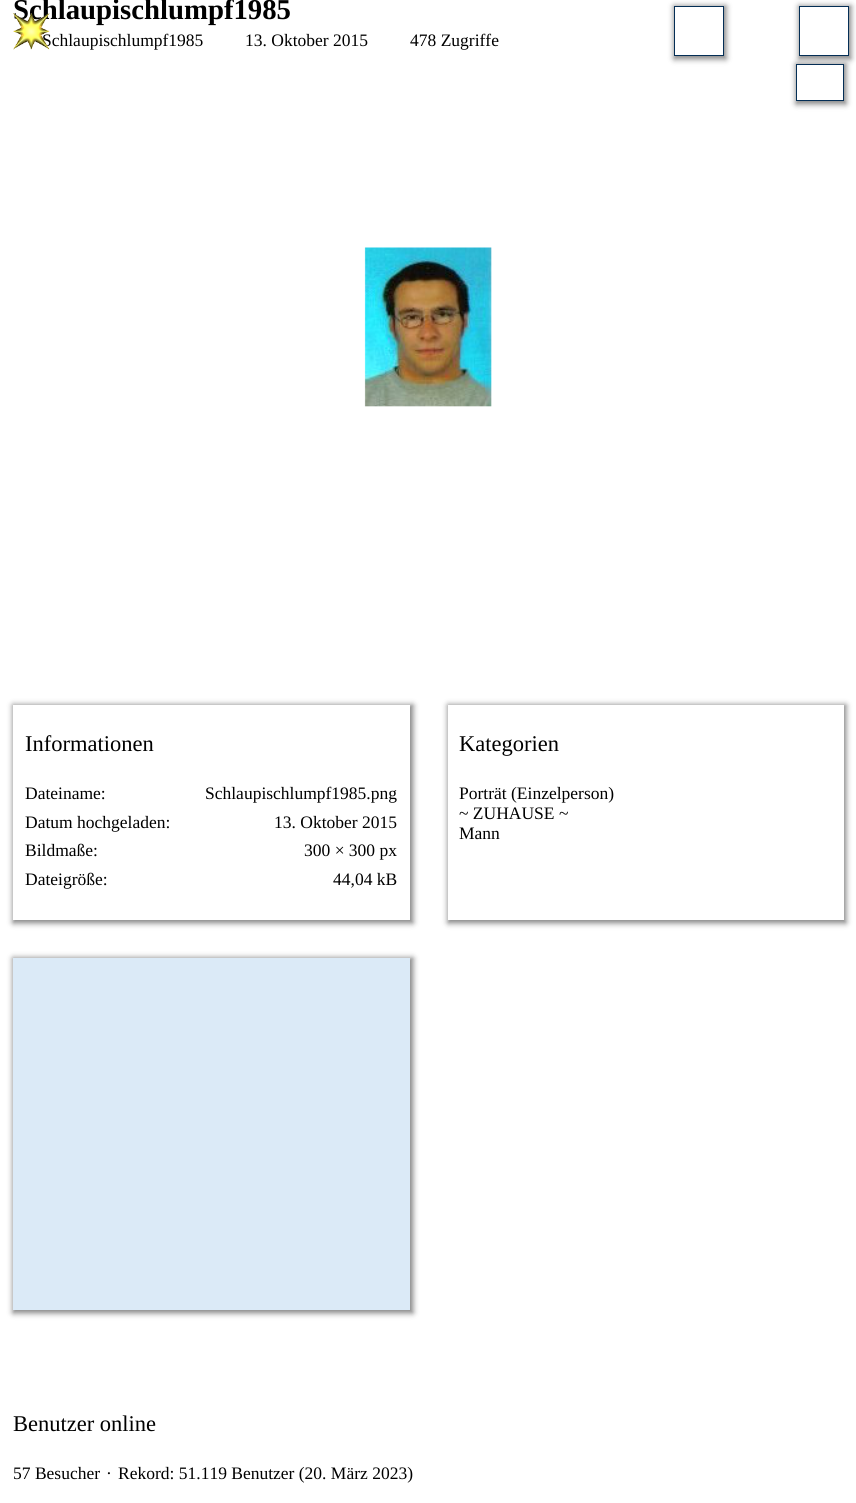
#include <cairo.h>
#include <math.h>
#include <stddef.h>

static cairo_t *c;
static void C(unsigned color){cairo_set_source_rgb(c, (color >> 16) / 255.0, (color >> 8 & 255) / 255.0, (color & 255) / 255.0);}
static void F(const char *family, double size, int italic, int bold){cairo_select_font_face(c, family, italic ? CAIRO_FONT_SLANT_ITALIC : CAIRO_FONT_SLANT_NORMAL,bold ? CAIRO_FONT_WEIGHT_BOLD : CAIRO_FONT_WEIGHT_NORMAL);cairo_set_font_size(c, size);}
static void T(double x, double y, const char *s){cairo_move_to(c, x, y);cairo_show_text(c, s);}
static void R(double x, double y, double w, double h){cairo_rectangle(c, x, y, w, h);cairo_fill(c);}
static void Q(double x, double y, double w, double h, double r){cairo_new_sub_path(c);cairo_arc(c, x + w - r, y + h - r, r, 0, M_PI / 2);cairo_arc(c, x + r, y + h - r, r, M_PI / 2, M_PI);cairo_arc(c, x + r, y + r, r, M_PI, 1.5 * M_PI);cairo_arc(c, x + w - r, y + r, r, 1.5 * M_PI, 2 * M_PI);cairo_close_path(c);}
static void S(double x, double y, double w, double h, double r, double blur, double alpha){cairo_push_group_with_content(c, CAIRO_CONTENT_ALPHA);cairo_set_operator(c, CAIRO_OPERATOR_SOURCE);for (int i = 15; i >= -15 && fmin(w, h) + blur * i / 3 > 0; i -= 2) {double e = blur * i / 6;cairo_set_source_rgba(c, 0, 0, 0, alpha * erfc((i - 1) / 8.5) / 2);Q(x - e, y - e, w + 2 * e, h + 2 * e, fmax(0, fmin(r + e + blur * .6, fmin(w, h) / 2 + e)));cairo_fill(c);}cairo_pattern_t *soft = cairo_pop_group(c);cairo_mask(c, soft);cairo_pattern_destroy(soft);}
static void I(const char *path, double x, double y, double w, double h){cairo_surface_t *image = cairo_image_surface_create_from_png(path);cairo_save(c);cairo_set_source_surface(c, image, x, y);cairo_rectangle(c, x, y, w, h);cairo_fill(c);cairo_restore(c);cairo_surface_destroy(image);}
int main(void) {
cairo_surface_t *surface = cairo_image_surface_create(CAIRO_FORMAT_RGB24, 856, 1503);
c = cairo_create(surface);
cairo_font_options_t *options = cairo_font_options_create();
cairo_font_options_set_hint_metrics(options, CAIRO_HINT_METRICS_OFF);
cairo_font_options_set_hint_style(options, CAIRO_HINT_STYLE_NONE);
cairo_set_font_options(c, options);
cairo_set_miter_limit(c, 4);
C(0xffffff);
cairo_paint(c);
F("Liberation Serif",28.75,0,1);
C(0x000000);
T(13,19,"Schlaupischlumpf1985");
F("Liberation Serif",17.5,0,0);
T(42,46,"Schlaupischlumpf1985");
I("1.png",13,13,37,37);
cairo_save(c);
cairo_set_fill_rule(c,CAIRO_FILL_RULE_EVEN_ODD);
cairo_new_path(c);
cairo_move_to(c,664,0);
cairo_line_to(c,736,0);
cairo_line_to(c,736,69);
cairo_line_to(c,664,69);
cairo_close_path(c);
cairo_move_to(c,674,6);
cairo_line_to(c,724,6);
cairo_line_to(c,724,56);
cairo_line_to(c,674,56);
cairo_close_path(c);
cairo_clip(c);
C(0x000000);
S(674,6,52,53,0,3,.5);
cairo_restore(c);
cairo_rectangle(c,674.5,6.5,49,49);
C(0x042e55);
cairo_set_line_width(c,1);
cairo_stroke(c);
cairo_save(c);
cairo_set_fill_rule(c,CAIRO_FILL_RULE_EVEN_ODD);
cairo_new_path(c);
cairo_move_to(c,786,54);
cairo_line_to(c,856,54);
cairo_line_to(c,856,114);
cairo_line_to(c,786,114);
cairo_close_path(c);
cairo_move_to(c,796,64);
cairo_line_to(c,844,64);
cairo_line_to(c,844,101);
cairo_line_to(c,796,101);
cairo_close_path(c);
cairo_clip(c);
C(0x000000);
S(796,64,50,40,0,3,.5);
cairo_restore(c);
cairo_rectangle(c,796.5,64.5,47,36);
cairo_stroke(c);
cairo_save(c);
cairo_set_fill_rule(c,CAIRO_FILL_RULE_EVEN_ODD);
cairo_new_path(c);
cairo_move_to(c,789,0);
cairo_line_to(c,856,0);
cairo_line_to(c,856,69);
cairo_line_to(c,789,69);
cairo_close_path(c);
cairo_move_to(c,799,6);
cairo_line_to(c,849,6);
cairo_line_to(c,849,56);
cairo_line_to(c,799,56);
cairo_close_path(c);
cairo_clip(c);
C(0x000000);
S(799,6,52,53,0,3,.5);
cairo_restore(c);
cairo_rectangle(c,799.5,6.5,49,49);
cairo_stroke(c);
C(0x000000);
T(245,46,"13. Oktober 2015");
T(410,46,"478 Zugriffe");
I("2.png",364,247,128,160);
cairo_save(c);
cairo_set_fill_rule(c,CAIRO_FILL_RULE_EVEN_ODD);
cairo_new_path(c);
cairo_move_to(c,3,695);
cairo_line_to(c,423,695);
cairo_line_to(c,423,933);
cairo_line_to(c,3,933);
cairo_close_path(c);
cairo_move_to(c,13,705);
cairo_line_to(c,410,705);
cairo_line_to(c,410,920);
cairo_line_to(c,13,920);
cairo_close_path(c);
cairo_clip(c);
C(0x000000);
S(13,705,400,218,0,3,.5);
cairo_restore(c);
F("Liberation Serif",22.5,0,0);
T(25,751,"Informationen");
F("Liberation Serif",17.5,0,0);
T(25,799,"Dateiname:");
T(205,799,"Schlaupischlumpf1985.png");
T(25,828,"Datum hochgeladen:");
T(274,828,"13. Oktober 2015");
T(25,856,"Bildmaße:");
T(304,856,"300 × 300 px");
T(25,885,"Dateigröße:");
T(333,885,"44,04 kB");
cairo_save(c);
cairo_set_fill_rule(c,CAIRO_FILL_RULE_EVEN_ODD);
cairo_new_path(c);
cairo_move_to(c,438,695);
cairo_line_to(c,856,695);
cairo_line_to(c,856,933);
cairo_line_to(c,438,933);
cairo_close_path(c);
cairo_move_to(c,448,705);
cairo_line_to(c,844,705);
cairo_line_to(c,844,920);
cairo_line_to(c,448,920);
cairo_close_path(c);
cairo_clip(c);
C(0x000000);
S(448,705,398,218,0,3,.5);
cairo_restore(c);
F("Liberation Serif",22.5,0,0);
T(459,751,"Kategorien");
F("Liberation Serif",17.5,0,0);
T(459,799,"Porträt (Einzelperson)");
T(459,819,"~ ZUHAUSE ~");
T(459,839,"Mann");
C(0x000000);
S(13,958,400,355,0,3,.5);
C(0xdbeaf7);
R(13,958,397,352);
F("Liberation Serif",22.5,0,0);
C(0x000000);
T(13,1431,"Benutzer online");
F("Liberation Serif",17.5,0,0);
T(13,1479,"57 Besucher");
T(106,1479,"·");
T(118,1479,"Rekord: 51.119 Benutzer (20. März 2023)");
cairo_surface_write_to_png(surface, "o.png");
cairo_font_options_destroy(options);
cairo_destroy(c);
cairo_surface_destroy(surface);
return 0;
}
